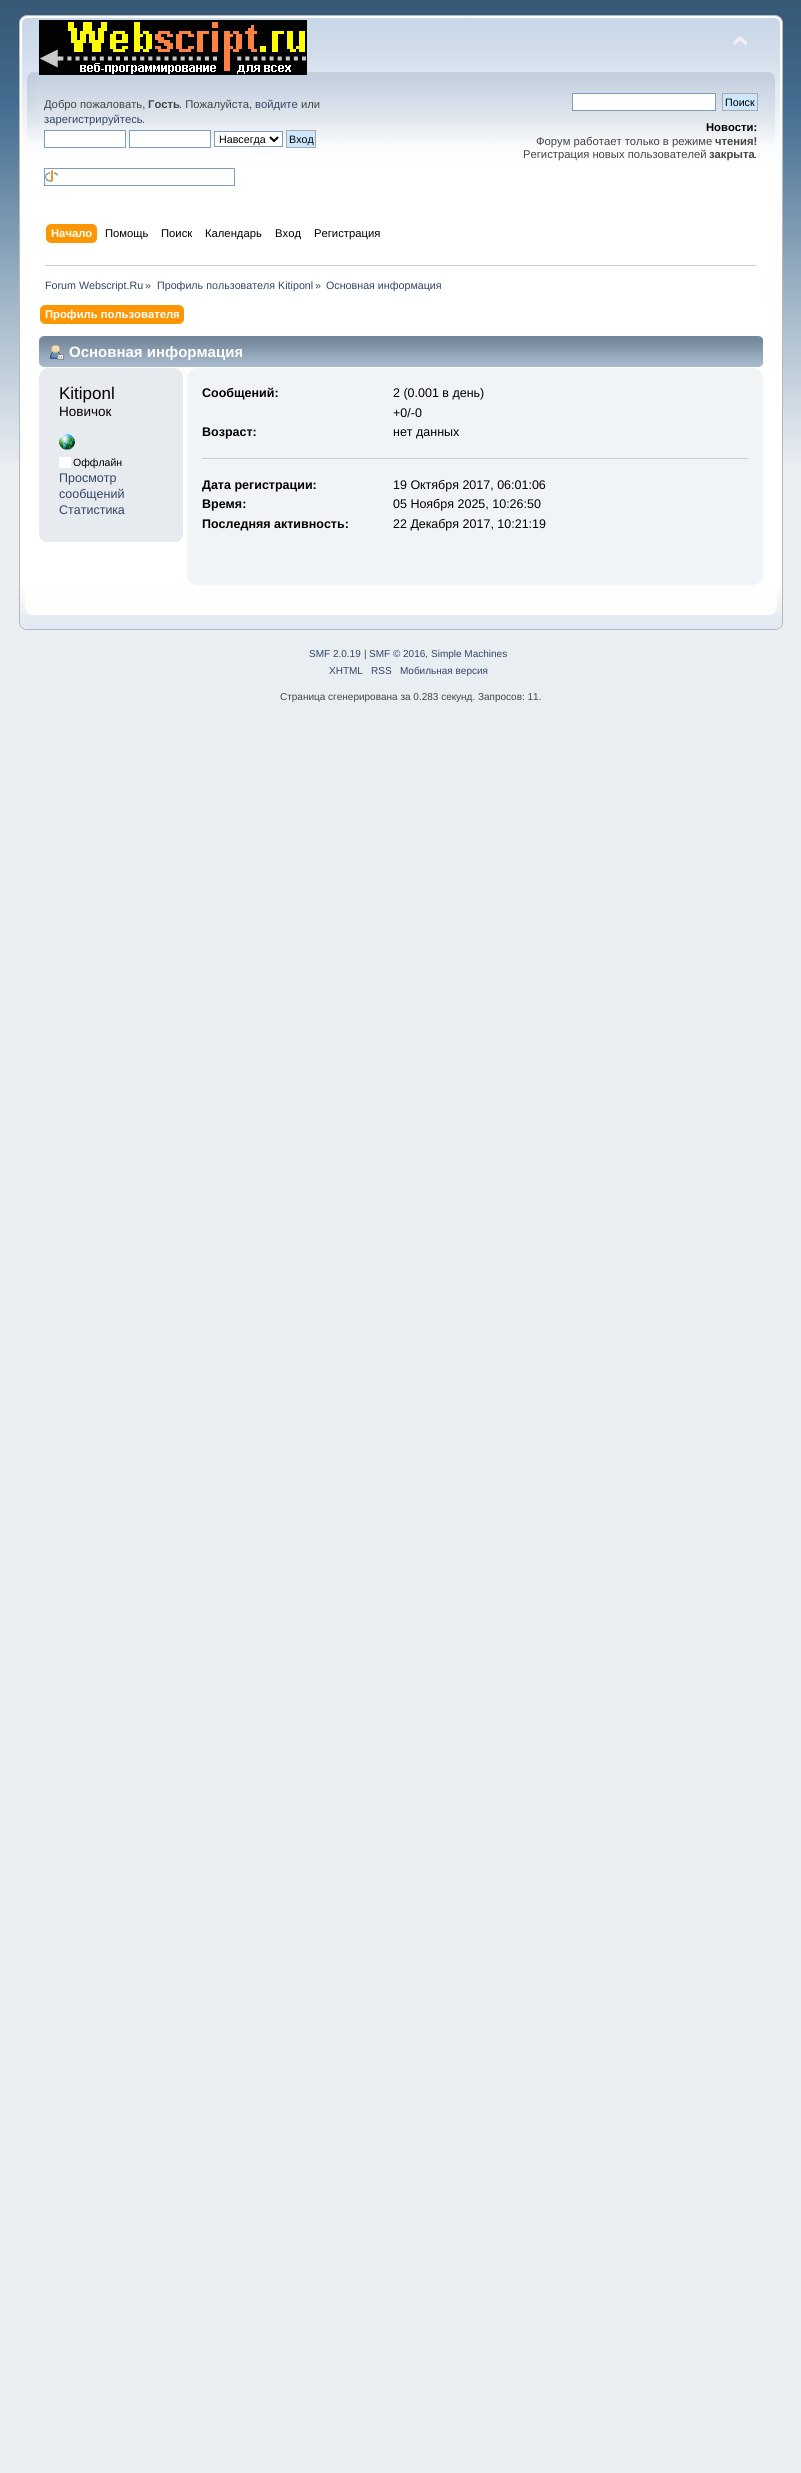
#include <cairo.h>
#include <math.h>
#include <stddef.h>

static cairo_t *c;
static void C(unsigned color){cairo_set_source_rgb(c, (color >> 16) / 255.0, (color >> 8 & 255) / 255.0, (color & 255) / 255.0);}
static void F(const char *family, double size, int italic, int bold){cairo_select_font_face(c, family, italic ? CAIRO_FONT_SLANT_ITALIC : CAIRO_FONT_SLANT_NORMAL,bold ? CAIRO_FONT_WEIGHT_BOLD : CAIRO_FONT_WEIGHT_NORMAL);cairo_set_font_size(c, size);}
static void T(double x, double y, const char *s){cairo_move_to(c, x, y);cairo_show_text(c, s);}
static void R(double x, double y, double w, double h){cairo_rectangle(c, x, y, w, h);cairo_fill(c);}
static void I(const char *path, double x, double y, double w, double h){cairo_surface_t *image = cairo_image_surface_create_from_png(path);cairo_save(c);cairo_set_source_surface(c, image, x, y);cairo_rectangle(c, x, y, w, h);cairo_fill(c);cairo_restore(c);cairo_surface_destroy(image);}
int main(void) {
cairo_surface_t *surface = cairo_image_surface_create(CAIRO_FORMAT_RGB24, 801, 2473);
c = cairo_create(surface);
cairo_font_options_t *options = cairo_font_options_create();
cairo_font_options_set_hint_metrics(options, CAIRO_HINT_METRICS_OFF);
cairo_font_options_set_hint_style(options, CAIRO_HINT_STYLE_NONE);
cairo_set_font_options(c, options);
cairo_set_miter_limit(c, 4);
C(0xe9eef2);
cairo_paint(c);
I("1.png",0,0,801,462);
I("2.png",19,15,750,244);
I("3.png",769,15,14,244);
I("4.png",39,20,268,55);
I("5.png",733,35,15,12);
cairo_save(c);
cairo_rectangle(c,44,93,357,93);
cairo_clip(c);
F("Liberation Sans",11.25,0,0);
C(0x444444);
T(44,108,"Добро пожаловать,");
cairo_restore(c);
F("Liberation Sans",11.25,0,1);
C(0x444444);
T(148,108,"Гость");
F("Liberation Sans",11.25,0,0);
T(179,108,". Пожалуйста,");
C(0x334466);
T(255,108,"войдите");
C(0x444444);
T(301,108,"или");
C(0x334466);
T(44,123,"зарегистрируйтесь");
C(0x444444);
T(142,123,".");
C(0xffffff);
cairo_rectangle(c,44.5,130.5,81,17);
cairo_fill_preserve(c);
C(0x7f9db9);
cairo_set_line_width(c,1);
cairo_stroke(c);
C(0xffffff);
cairo_rectangle(c,129.5,130.5,81,17);
cairo_fill_preserve(c);
C(0x7f9db9);
cairo_stroke(c);
C(0xffffff);
cairo_rectangle(c,214.5,131.5,68,15);
cairo_fill_preserve(c);
C(0x7f9db9);
cairo_stroke(c);
cairo_new_path(c);
cairo_move_to(c,270,137);
cairo_line_to(c,274,141);
cairo_line_to(c,278,137);
C(0x000000);
cairo_set_line_width(c,2);
cairo_stroke(c);
F("Liberation Sans",10.7,0,0);
T(219,143,"Навсегда");
C(0xcde7ff);
cairo_rectangle(c,286.5,130.5,29,17);
cairo_fill_preserve(c);
C(0xaaaaaa);
cairo_set_line_width(c,1);
cairo_stroke(c);
C(0x000000);
T(289,143,"Вход");
I("6.png",45,169,13,13);
cairo_rectangle(c,44.5,168.5,190,17);
C(0x7f9db9);
cairo_stroke(c);
C(0xffffff);
cairo_rectangle(c,572.5,93.5,143,17);
cairo_fill_preserve(c);
C(0x7f9db9);
cairo_stroke(c);
C(0xcde7ff);
cairo_rectangle(c,722.5,93.5,35,17);
cairo_fill_preserve(c);
C(0xaaaaaa);
cairo_stroke(c);
C(0x000000);
T(725,106,"Поиск");
F("Liberation Sans",11.25,0,1);
T(706,131,"Новости:");
F("Liberation Sans",11.25,0,0);
C(0x444444);
T(536,145,"Форум работает только в режиме");
F("Liberation Sans",11.25,0,1);
T(715,145,"чтения!");
F("Liberation Sans",11.25,0,0);
T(523,158,"Регистрация новых пользователей");
F("Liberation Sans",11.25,0,1);
T(709,158,"закрыта");
F("Liberation Sans",11.25,0,0);
T(754,158,".");
I("7.png",51,224,46,19);
I("8.png",46,224,5,19);
F("Liberation Sans",11.25,0,1);
C(0xffffff);
T(51,237,"Начало");
F("Liberation Sans",11.25,0,0);
C(0x000000);
T(105,237,"Помощь");
T(161,237,"Поиск");
T(205,237,"Календарь");
T(275,237,"Вход");
T(314,237,"Регистрация");
C(0xffffff);
R(20,259,762,327);
C(0xb7b7b7);
R(19,259,1,327);
R(782,259,1,327);
C(0xcccccc);
R(45,265,711,1);
F("Liberation Sans",10.7,0,0);
C(0x334466);
T(45,289,"Forum Webscript.Ru");
C(0x444444);
T(145,289,"»");
C(0x334466);
T(157,289,"Профиль пользователя Kitiponl");
C(0x444444);
T(315,289,"»");
C(0x334466);
T(326,289,"Основная информация");
I("9.png",45,305,139,19);
I("8.png",40,305,5,19);
F("Liberation Sans",11.25,0,1);
C(0xffffff);
T(45,318,"Профиль пользователя");
I("10.png",39,336,719,31);
I("11.png",758,336,5,31);
I("12.png",50,345,14,15);
F("Liberation Sans",15,0,1);
T(69,357,"Основная информация");
C(0xe7eaef);
R(39,368,144,174);
I("13.png",39,368,9,9);
I("14.png",175,368,8,8);
F("Liberation Sans",17,0,0);
C(0x000000);
T(59,399,"Kitiponl");
F("Liberation Sans",13.5,0,0);
T(59,416,"Новичок");
I("15.png",59,434,16,16);
C(0xffffff);
R(59,457,12,11);
F("Liberation Sans",10.5,0,0);
C(0x000000);
T(73,466,"Оффлайн");
F("Liberation Sans",12.5,0,0);
C(0x334466);
T(59,482,"Просмотр");
T(59,498,"сообщений");
T(59,514,"Статистика");
I("16.png",39,534,6,8);
I("17.png",178,535,5,7);
C(0xf0f4f7);
R(187,368,576,217);
I("18.png",187,368,8,8);
I("19.png",755,368,8,8);
C(0xcccccc);
R(202,458,546,1);
F("Liberation Sans",12.5,0,1);
C(0x000000);
T(202,397,"Сообщений:");
F("Liberation Sans",12.5,0,0);
T(393,397,"2 (0.001 в день)");
T(393,417,"+0/-0");
F("Liberation Sans",12.5,0,1);
T(202,436,"Возраст:");
F("Liberation Sans",12.5,0,0);
T(393,436,"нет данных");
F("Liberation Sans",12.5,0,1);
T(202,489,"Дата регистрации:");
F("Liberation Sans",12.5,0,0);
T(393,489,"19 Октября 2017, 06:01:06");
F("Liberation Sans",12.5,0,1);
T(202,508,"Время:");
F("Liberation Sans",12.5,0,0);
T(393,508,"05 Ноября 2025, 10:26:50");
F("Liberation Sans",12.5,0,1);
T(202,528,"Последняя активность:");
F("Liberation Sans",12.5,0,0);
T(393,528,"22 Декабря 2017, 10:21:19");
I("20.png",187,577,8,8);
I("21.png",755,577,8,8);
I("22.png",19,586,752,44);
I("23.png",771,586,12,44);
F("Liberation Sans",10,0,0);
C(0x334466);
T(309,657,"SMF 2.0.19");
C(0x444444);
T(364,657,"|");
C(0x334466);
T(369,657,"SMF © 2016");
C(0x444444);
T(425,657,",");
C(0x334466);
T(431,657,"Simple Machines");
T(329,674,"XHTML");
T(371,674,"RSS");
T(400,674,"Мобильная версия");
C(0x444444);
T(280,700,"Страница сгенерирована за 0.283 секунд. Запросов: 11.");
cairo_surface_write_to_png(surface, "o.png");
cairo_font_options_destroy(options);
cairo_destroy(c);
cairo_surface_destroy(surface);
return 0;
}
